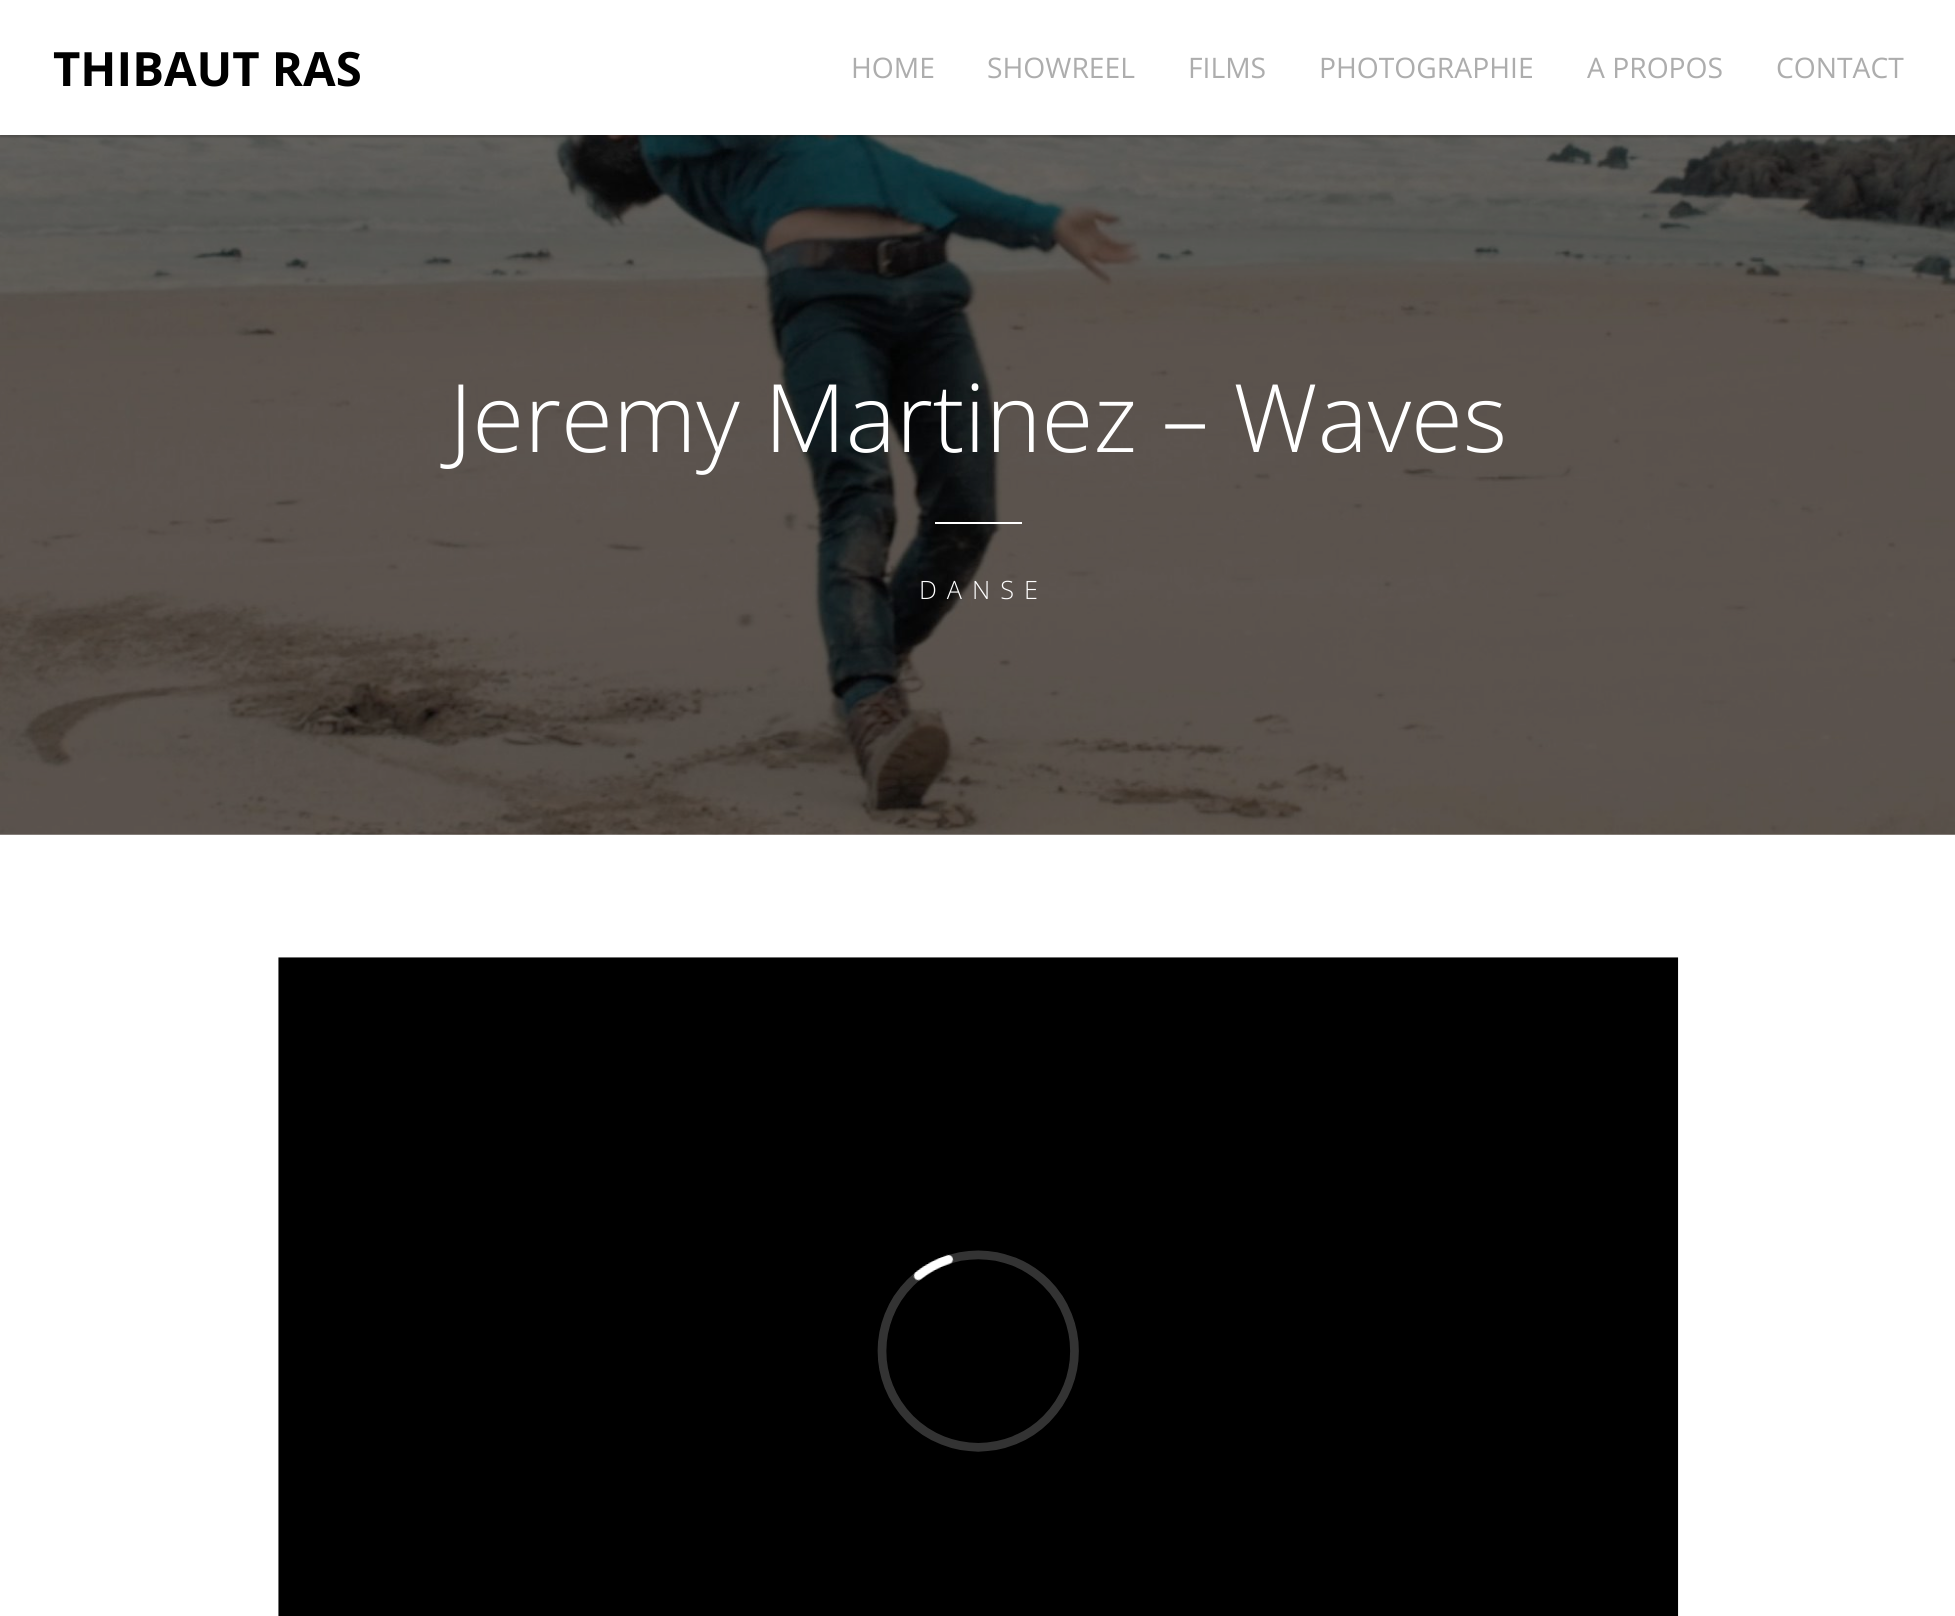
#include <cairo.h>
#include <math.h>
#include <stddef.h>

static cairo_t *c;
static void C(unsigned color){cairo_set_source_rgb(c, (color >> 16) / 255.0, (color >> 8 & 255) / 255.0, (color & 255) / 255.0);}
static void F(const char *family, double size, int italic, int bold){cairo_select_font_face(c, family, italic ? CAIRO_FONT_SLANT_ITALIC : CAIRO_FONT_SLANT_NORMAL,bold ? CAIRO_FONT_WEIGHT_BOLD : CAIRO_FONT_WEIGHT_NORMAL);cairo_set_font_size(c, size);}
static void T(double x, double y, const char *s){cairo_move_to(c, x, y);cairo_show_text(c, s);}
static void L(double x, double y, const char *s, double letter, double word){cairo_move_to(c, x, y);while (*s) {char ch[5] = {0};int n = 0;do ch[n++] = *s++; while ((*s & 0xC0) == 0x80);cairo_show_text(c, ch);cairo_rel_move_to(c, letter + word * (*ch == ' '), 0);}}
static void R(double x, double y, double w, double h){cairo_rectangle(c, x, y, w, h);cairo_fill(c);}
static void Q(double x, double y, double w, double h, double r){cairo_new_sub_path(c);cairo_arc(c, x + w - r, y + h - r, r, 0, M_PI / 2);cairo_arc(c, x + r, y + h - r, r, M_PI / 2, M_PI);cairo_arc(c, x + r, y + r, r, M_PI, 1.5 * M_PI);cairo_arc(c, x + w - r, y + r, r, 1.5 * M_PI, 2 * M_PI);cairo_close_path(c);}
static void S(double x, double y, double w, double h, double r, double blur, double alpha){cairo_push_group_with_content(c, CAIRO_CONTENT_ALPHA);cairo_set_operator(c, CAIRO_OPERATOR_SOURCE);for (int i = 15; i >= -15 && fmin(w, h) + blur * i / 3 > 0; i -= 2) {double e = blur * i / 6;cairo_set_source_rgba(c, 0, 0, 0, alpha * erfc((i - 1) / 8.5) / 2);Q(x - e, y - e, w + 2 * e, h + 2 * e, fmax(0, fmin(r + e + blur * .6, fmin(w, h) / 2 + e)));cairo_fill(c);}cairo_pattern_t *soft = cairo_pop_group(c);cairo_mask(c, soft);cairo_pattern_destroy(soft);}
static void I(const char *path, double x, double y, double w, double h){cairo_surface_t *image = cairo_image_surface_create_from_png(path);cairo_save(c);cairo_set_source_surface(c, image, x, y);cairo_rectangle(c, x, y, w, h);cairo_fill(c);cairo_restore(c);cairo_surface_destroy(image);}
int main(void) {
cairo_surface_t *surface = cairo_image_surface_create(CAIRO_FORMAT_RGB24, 1955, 1616);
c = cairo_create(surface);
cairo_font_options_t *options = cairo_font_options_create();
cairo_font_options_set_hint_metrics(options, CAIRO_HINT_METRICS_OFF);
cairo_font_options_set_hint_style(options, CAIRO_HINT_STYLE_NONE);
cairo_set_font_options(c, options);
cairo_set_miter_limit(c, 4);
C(0xffffff);
cairo_paint(c);
I("1.png",0,135,1955,700);
C(0x000000);
S(0,2,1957,135,0,1,.2);
C(0xffffff);
R(0,0,1955,135);
F("Open Sans",47.25,0,1);
C(0x000000);
T(53,86,"THIBAUT RAS");
F("Open Sans",28.25,0,0);
C(0xadadad);
T(851,78,"HOME");
T(987,78,"SHOWREEL");
T(1188,78,"FILMS");
T(1319,78,"PHOTOGRAPHIE");
T(1587,78,"A PROPOS");
T(1776,78,"CONTACT");
F("Open Sans Light",94.5,0,0);
C(0xffffff);
T(449,452,"Jeremy Martinez – Waves");
R(935,522,87,2);
F("Open Sans Light",25.25,0,0);
L(919,599,"DANSE",10,0);
I("2.png",278,957,1401,659);
cairo_surface_write_to_png(surface, "o.png");
cairo_font_options_destroy(options);
cairo_destroy(c);
cairo_surface_destroy(surface);
return 0;
}
